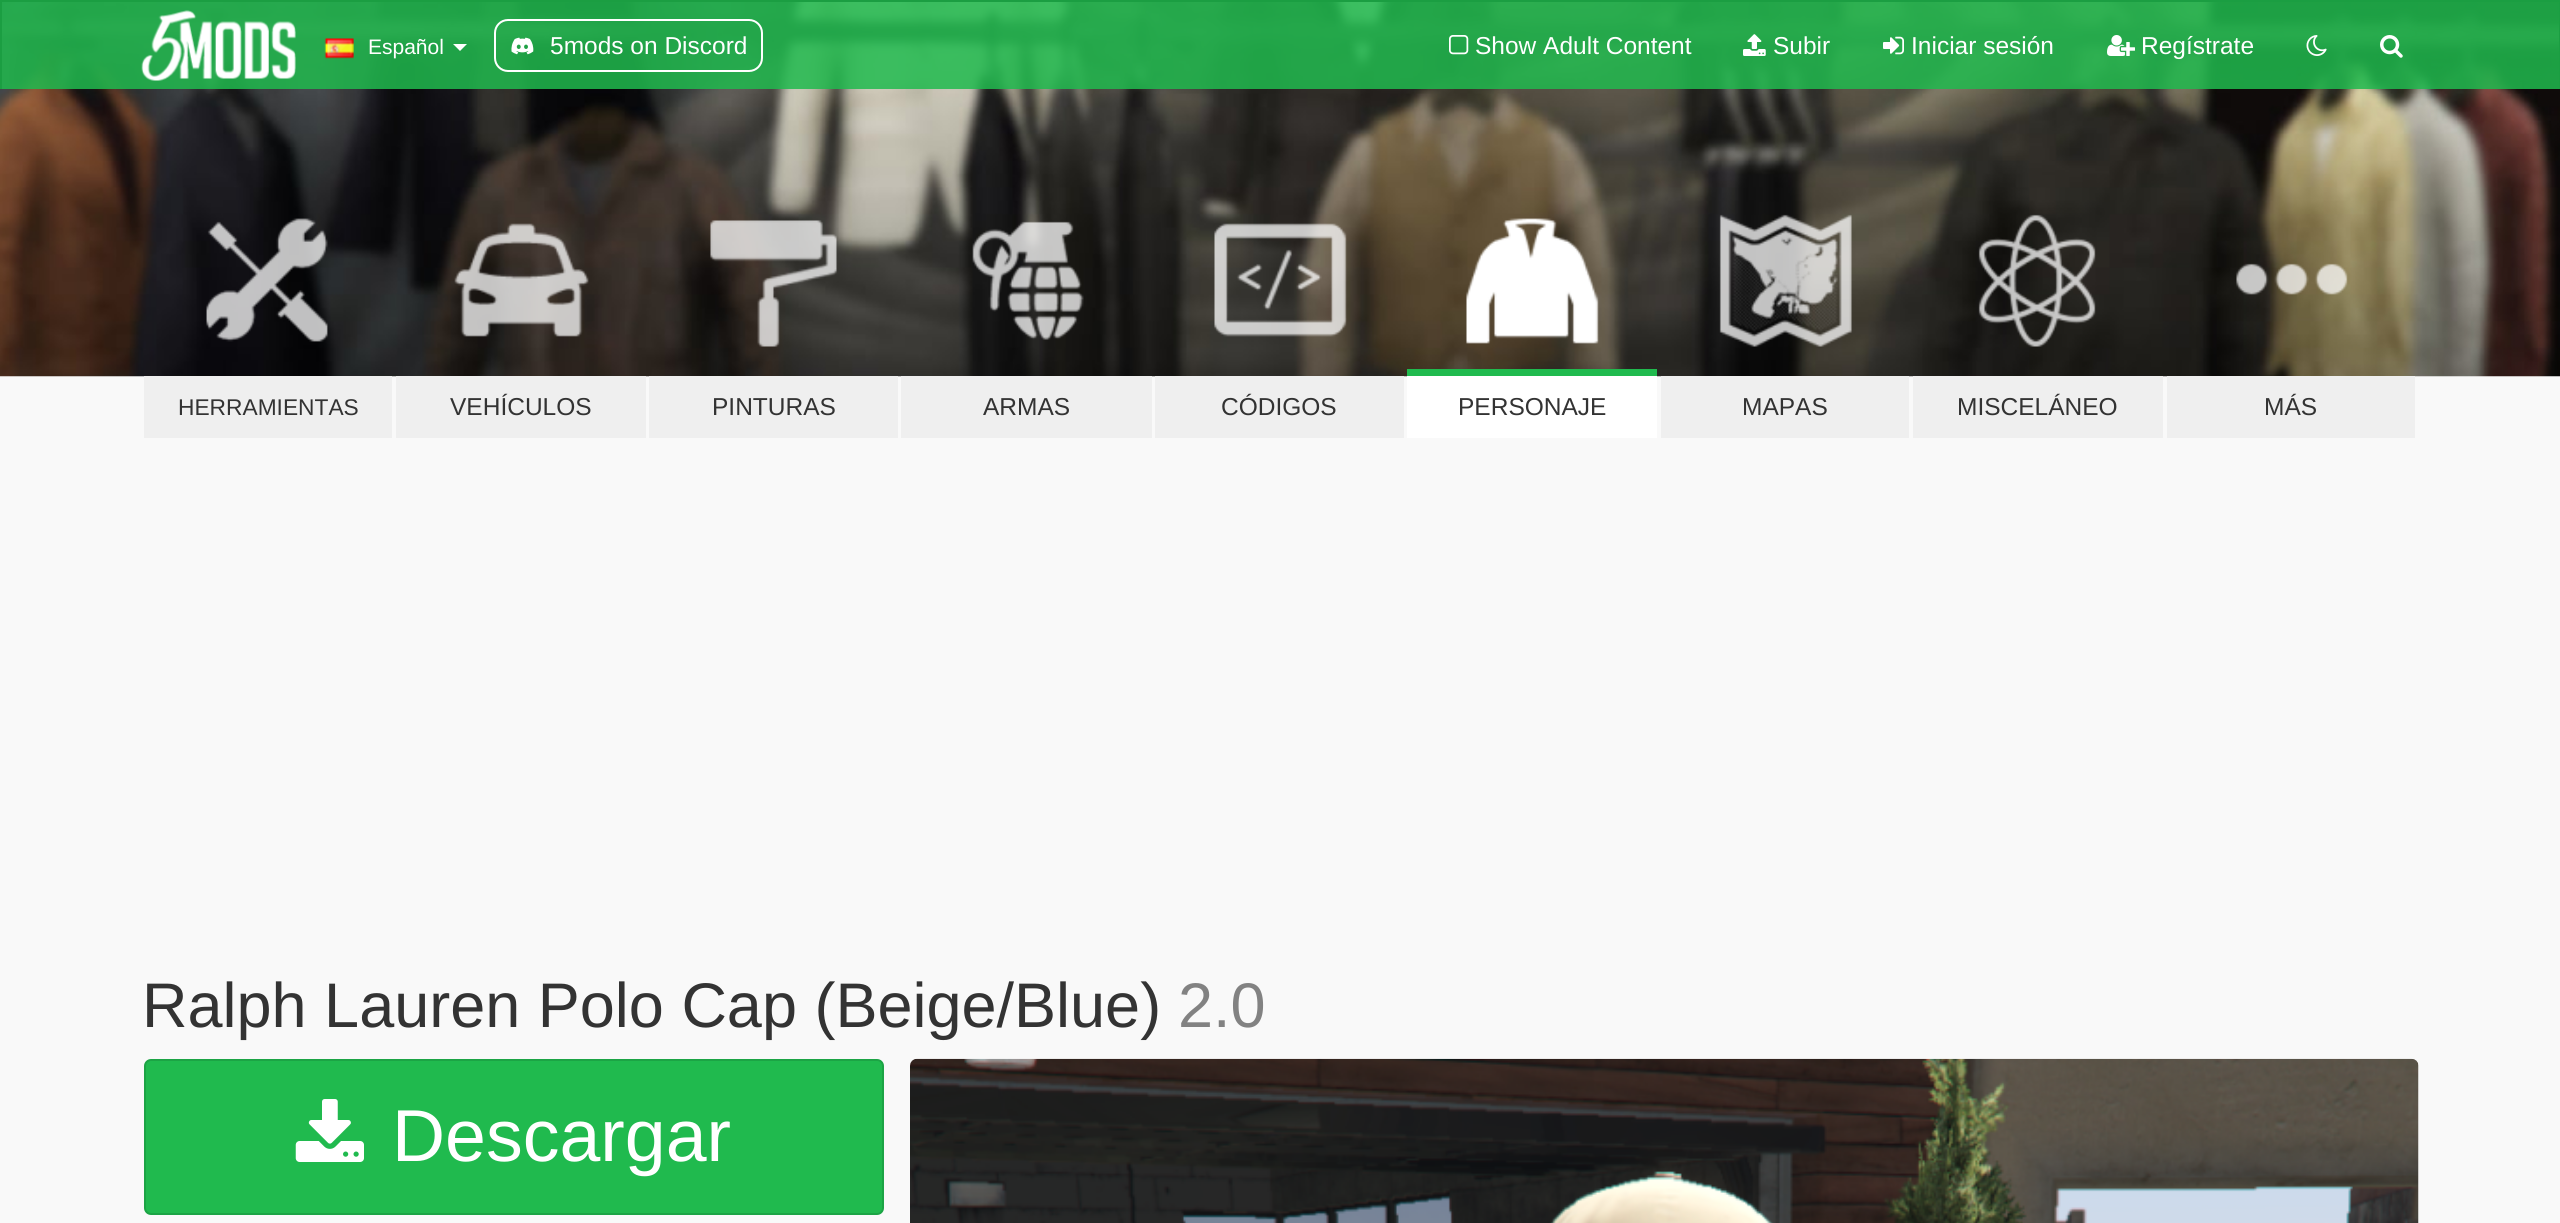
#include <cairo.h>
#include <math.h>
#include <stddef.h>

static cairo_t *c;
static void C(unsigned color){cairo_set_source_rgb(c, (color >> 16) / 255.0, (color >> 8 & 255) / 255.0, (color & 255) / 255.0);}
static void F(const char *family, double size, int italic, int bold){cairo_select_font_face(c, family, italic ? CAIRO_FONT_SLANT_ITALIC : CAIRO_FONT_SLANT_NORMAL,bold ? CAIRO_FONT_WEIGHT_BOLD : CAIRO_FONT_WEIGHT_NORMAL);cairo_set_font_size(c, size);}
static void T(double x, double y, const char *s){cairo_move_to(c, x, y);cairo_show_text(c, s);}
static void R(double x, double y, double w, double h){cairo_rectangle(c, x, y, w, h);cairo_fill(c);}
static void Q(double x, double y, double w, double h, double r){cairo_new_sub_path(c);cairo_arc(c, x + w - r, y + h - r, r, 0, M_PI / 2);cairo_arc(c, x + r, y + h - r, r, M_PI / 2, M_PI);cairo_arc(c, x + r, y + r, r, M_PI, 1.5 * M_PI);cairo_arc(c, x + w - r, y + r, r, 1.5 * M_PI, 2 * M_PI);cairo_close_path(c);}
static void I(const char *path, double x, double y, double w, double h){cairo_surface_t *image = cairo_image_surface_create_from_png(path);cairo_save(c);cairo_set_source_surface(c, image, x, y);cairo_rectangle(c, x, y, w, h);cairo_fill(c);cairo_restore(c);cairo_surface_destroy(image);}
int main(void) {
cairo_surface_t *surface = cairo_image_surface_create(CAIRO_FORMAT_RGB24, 2560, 1223);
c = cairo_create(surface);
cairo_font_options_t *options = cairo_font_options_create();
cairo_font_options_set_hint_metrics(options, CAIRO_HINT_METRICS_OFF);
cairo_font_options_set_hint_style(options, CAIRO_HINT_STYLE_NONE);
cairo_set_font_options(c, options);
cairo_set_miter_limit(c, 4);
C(0xf9f9f9);
cairo_paint(c);
I("10.png",0,2,2560,375);
cairo_set_source_rgba(c,0.125,0.729,0.306,0.85);
R(2,2,2557,87);
C(0x1b9e42);
R(0,0,2560,2);
R(2559,0,1,89);
R(0,0,2,89);
I("1.png",141,10,155,71);
I("2.png",324,38,30,21);
F("Liberation Sans",21,0,0);
C(0xffffff);
T(368,54,"Español");
cairo_new_path(c);
cairo_move_to(c,453,44);
cairo_line_to(c,467,44);
cairo_line_to(c,460,51);
cairo_close_path(c);
cairo_fill(c);
Q(495,20,267,51,13);
cairo_stroke(c);
I("3.png",511,37,23,18);
F("Liberation Sans",24.5,0,0);
T(550,54,"5mods on Discord");
I("4.png",1449,35,20,20);
T(1475,54,"Show Adult Content");
I("5.png",1743,34,23,22);
T(1773,54,"Subir");
I("6.png",1883,36,21,19);
T(1911,54,"Iniciar sesión");
I("7.png",2107,35,28,21);
T(2141,54,"Regístrate");
I("8.png",2306,35,21,21);
I("9.png",2380,35,23,23);
I("11.png",206,218,122,124);
C(0xefefef);
R(144,376,248,62);
F("Liberation Sans",22.75,0,0);
C(0x333333);
T(178,415,"HERRAMIENTAS");
I("12.png",454,223,135,114);
C(0xefefef);
R(396,376,250,62);
F("Liberation Sans",24.5,0,0);
C(0x333333);
T(450,415,"VEHÍCULOS");
I("13.png",710,220,127,127);
C(0xefefef);
R(649,376,249,62);
C(0x333333);
T(712,415,"PINTURAS");
I("14.png",972,221,112,119);
C(0xefefef);
R(901,376,251,62);
C(0x333333);
T(983,415,"ARMAS");
I("15.png",1214,223,133,114);
C(0xefefef);
R(1155,376,249,62);
C(0x333333);
T(1221,415,"CÓDIGOS");
I("16.png",1466,218,133,126);
C(0x20ba4e);
R(1407,369,250,7);
C(0xffffff);
R(1407,376,250,62);
C(0x333333);
T(1458,415,"PERSONAJE");
I("17.png",1719,214,133,133);
C(0xefefef);
R(1661,376,248,62);
C(0x333333);
T(1742,415,"MAPAS");
I("18.png",1978,214,118,133);
C(0xefefef);
R(1913,376,250,62);
C(0x333333);
T(1957,415,"MISCELÁNEO");
I("19.png",2236,263,112,32);
C(0xefefef);
R(2167,376,248,62);
C(0x333333);
T(2264,415,"MÁS");
F("Liberation Sans",63,0,0);
T(142,1027,"Ralph Lauren Polo Cap (Beige/Blue)");
C(0x828282);
T(1178,1027,"2.0");
C(0x20ba4e);
Q(145,1060,738,154,6);
cairo_fill_preserve(c);
C(0x1ca445);
cairo_stroke(c);
I("20.png",295,1099,69,63);
F("Liberation Sans",73.5,0,0);
C(0xffffff);
T(392,1161,"Descargar");
I("21.png",910,1058,1509,165);
cairo_surface_write_to_png(surface, "o.png");
cairo_font_options_destroy(options);
cairo_destroy(c);
cairo_surface_destroy(surface);
return 0;
}
